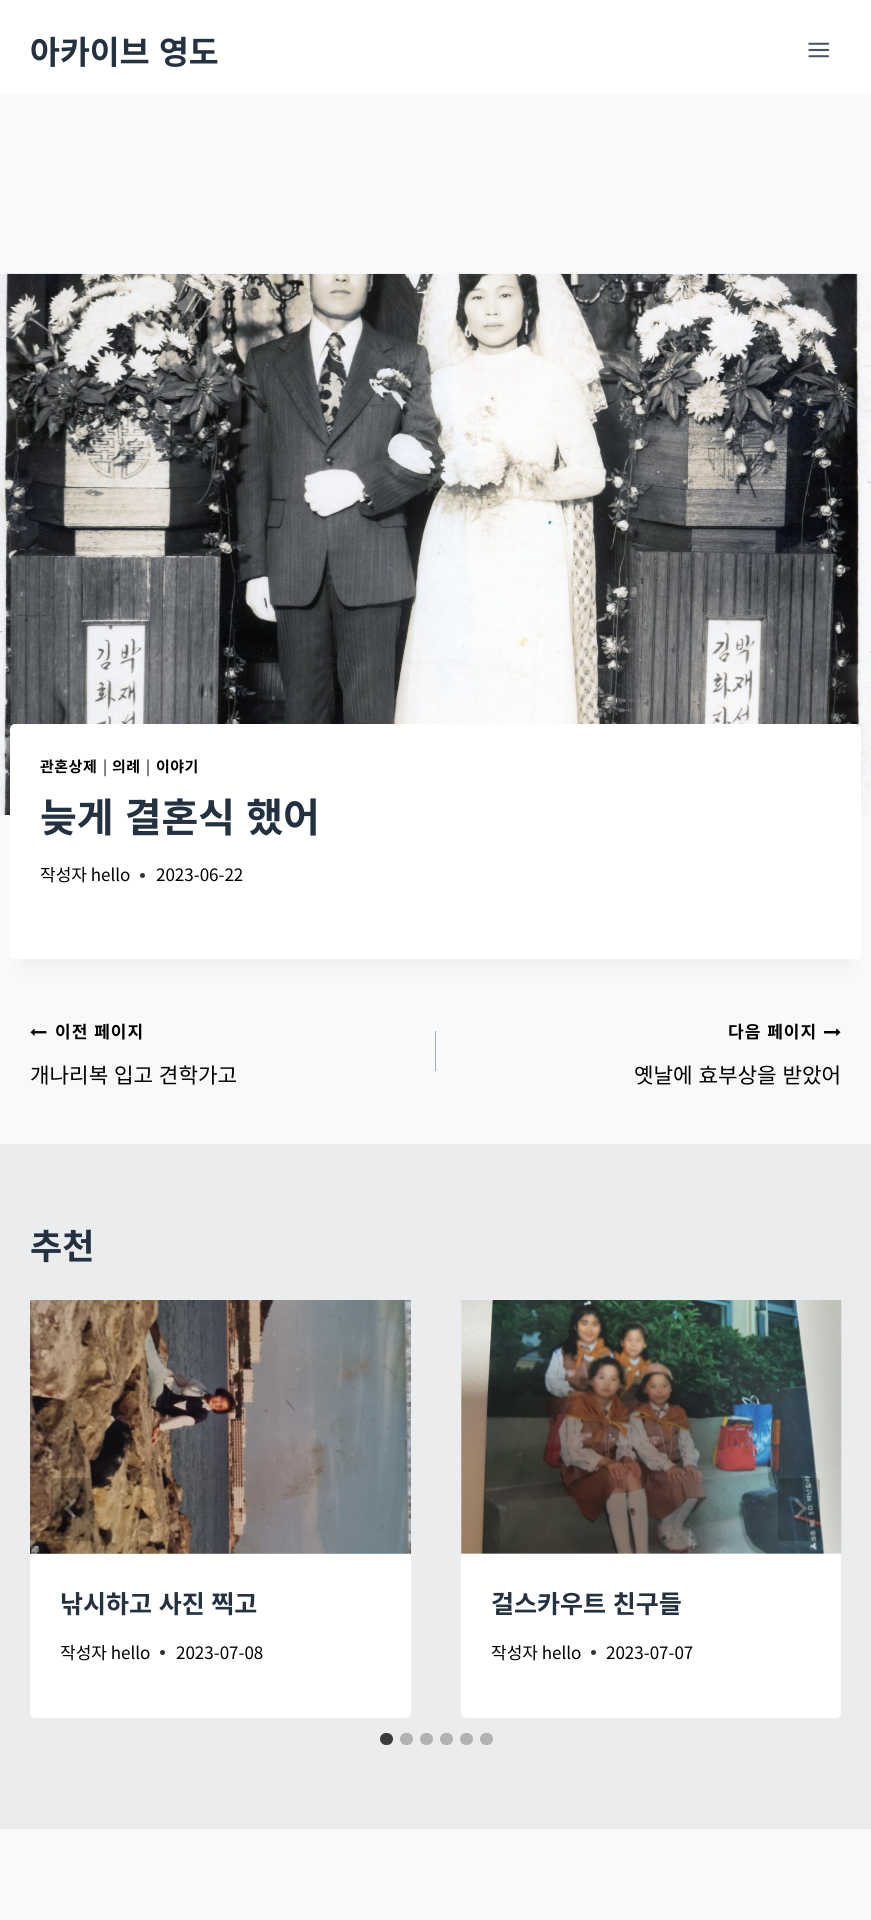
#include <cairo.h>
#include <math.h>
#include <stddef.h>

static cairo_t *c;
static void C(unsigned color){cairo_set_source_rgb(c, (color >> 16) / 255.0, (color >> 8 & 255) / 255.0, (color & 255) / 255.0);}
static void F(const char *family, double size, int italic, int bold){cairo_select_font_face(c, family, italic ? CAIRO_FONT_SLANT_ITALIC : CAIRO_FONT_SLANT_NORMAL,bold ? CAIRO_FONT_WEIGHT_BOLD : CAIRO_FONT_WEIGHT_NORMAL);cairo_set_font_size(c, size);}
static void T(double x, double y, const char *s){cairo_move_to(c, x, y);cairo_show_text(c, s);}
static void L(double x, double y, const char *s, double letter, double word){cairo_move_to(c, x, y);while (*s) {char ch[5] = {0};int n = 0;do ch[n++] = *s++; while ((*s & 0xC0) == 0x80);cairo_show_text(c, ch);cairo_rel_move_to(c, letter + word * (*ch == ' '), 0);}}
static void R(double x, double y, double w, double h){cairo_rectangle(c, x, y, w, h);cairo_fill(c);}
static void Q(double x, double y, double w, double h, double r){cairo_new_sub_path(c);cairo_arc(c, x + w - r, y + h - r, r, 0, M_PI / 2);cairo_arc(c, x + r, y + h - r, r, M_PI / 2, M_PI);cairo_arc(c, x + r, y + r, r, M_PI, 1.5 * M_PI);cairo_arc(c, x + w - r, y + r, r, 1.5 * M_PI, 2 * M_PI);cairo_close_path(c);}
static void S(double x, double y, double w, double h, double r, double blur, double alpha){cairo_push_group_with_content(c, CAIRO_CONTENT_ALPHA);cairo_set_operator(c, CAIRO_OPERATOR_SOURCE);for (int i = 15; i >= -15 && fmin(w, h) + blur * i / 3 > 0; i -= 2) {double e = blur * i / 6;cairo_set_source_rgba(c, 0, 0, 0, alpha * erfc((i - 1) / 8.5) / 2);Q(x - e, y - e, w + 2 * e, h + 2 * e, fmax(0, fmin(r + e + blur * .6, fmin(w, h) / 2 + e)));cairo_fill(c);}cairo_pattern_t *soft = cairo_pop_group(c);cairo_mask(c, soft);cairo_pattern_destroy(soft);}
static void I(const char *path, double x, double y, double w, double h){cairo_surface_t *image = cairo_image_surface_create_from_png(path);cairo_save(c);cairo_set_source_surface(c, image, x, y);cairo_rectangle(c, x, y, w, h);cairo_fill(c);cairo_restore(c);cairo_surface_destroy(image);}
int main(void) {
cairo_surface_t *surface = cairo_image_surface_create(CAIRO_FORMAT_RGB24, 871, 1920);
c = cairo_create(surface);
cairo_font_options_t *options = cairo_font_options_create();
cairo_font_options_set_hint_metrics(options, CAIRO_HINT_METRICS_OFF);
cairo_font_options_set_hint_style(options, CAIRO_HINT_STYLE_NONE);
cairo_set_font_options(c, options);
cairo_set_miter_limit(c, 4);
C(0xf8f9fa);
cairo_paint(c);
C(0xffffff);
R(0,0,871,94);
F("Noto Sans KR",32.5,0,1);
C(0x243141);
L(30,64,"아카이브 영도",0,2);
I("1.png",808,42,22,16);
I("2.png",0,273,871,542);
C(0x000000);
S(23,755,826,210,0,9.5,.05);
C(0xffffff);
Q(10,724,851,235,5);
cairo_fill(c);
F("Noto Sans KR",15,0,1);
C(0x000000);
L(40,772,"관혼상제",.5,0);
F("Noto Sans KR",15,0,0);
L(103,772,"|",.5,0);
F("Noto Sans KR",15,0,1);
L(112,772,"의례",.5,0);
F("Noto Sans KR",15,0,0);
L(146,772,"|",.5,0);
F("Noto Sans KR",15,0,1);
L(156,772,"이야기",.5,0);
F("Noto Sans KR",40,0,1);
C(0x243141);
L(40,832,"늦게 결혼식 했어",0,2);
F("Noto Sans KR",17,0,0);
C(0x000000);
T(40,881,"작성자 hello");
C(0x333333);
cairo_new_path(c);
cairo_arc(c,142.5,875.5,2.5,0,2 * M_PI);
cairo_fill(c);
C(0x000000);
T(156,881,"2023-06-22");
I("3.png",30,1028,17,8);
F("Noto Sans KR",17,0,1);
L(55,1038,"이전 페이지",1,1);
F("Noto Sans KR",21.25,0,0);
L(30,1083,"개나리복 입고 견학가고",0,1);
C(0xa0aec0);
R(435,1031,1,40);
F("Noto Sans KR",17,0,1);
C(0x000000);
L(728,1038,"다음 페이지",1,1);
I("4.png",824,1028,17,8);
F("Noto Sans KR",21.25,0,0);
L(634,1083,"옛날에 효부상을 받았어",0,1);
C(0xeaecee);
R(0,1144,871,685);
F("Noto Sans KR",35,0,1);
C(0x243141);
T(30,1259,"추천");
C(0xffffff);
Q(30,1300,381,418,5);
cairo_fill(c);
I("5.png",30,1300,381,254);
cairo_set_source_rgba(c,0,0,0,0.2);
Q(51,1478,43,63,4);
cairo_fill(c);
cairo_set_source_rgba(c,1,1,1,0.25);
cairo_new_path(c);
cairo_move_to(c,74.5,1498.5);
cairo_line_to(c,76.5,1501);
cairo_line_to(c,69,1508.5);
cairo_line_to(c,76.5,1516.5);
cairo_line_to(c,74.5,1518.5);
cairo_line_to(c,64,1508.5);
cairo_close_path(c);
cairo_fill(c);
C(0xffffff);
Q(461,1300,380,418,5);
cairo_fill(c);
I("6.png",461,1300,381,254);
cairo_set_source_rgba(c,0,0,0,0.2);
Q(778,1478,42,63,4);
cairo_fill(c);
cairo_set_source_rgba(c,1,1,1,0.25);
cairo_new_path(c);
cairo_move_to(c,797,1498.5);
cairo_line_to(c,794.5,1501);
cairo_line_to(c,802.5,1508.5);
cairo_line_to(c,794.5,1516.5);
cairo_line_to(c,797,1518.5);
cairo_line_to(c,807,1508.5);
cairo_close_path(c);
cairo_fill(c);
F("Noto Sans KR",25,0,1);
C(0x243141);
L(60,1613,"낚시하고 사진 찍고",0,1);
F("Noto Sans KR",17,0,0);
C(0x000000);
T(60,1659,"작성자 hello");
C(0x333333);
cairo_new_path(c);
cairo_arc(c,162.5,1652.5,2.5,0,2 * M_PI);
cairo_fill(c);
C(0x000000);
T(176,1659,"2023-07-08");
F("Noto Sans KR",25,0,1);
C(0x243141);
L(491,1613,"걸스카우트 친구들",0,1);
F("Noto Sans KR",17,0,0);
C(0x000000);
T(491,1659,"작성자 hello");
C(0x333333);
cairo_new_path(c);
cairo_arc(c,593.5,1652.5,2.5,0,2 * M_PI);
cairo_fill(c);
C(0x000000);
T(606,1659,"2023-07-07");
C(0x3b3b3c);
Q(380,1733,13,12,6);
cairo_fill(c);
C(0xb0b1b3);
Q(400,1733,13,12,6);
cairo_fill(c);
Q(420,1733,13,12,6);
cairo_fill(c);
Q(440,1733,13,12,6);
cairo_fill(c);
Q(460,1733,13,12,6);
cairo_fill(c);
Q(480,1733,13,12,6);
cairo_fill(c);
cairo_surface_write_to_png(surface, "o.png");
cairo_font_options_destroy(options);
cairo_destroy(c);
cairo_surface_destroy(surface);
return 0;
}
